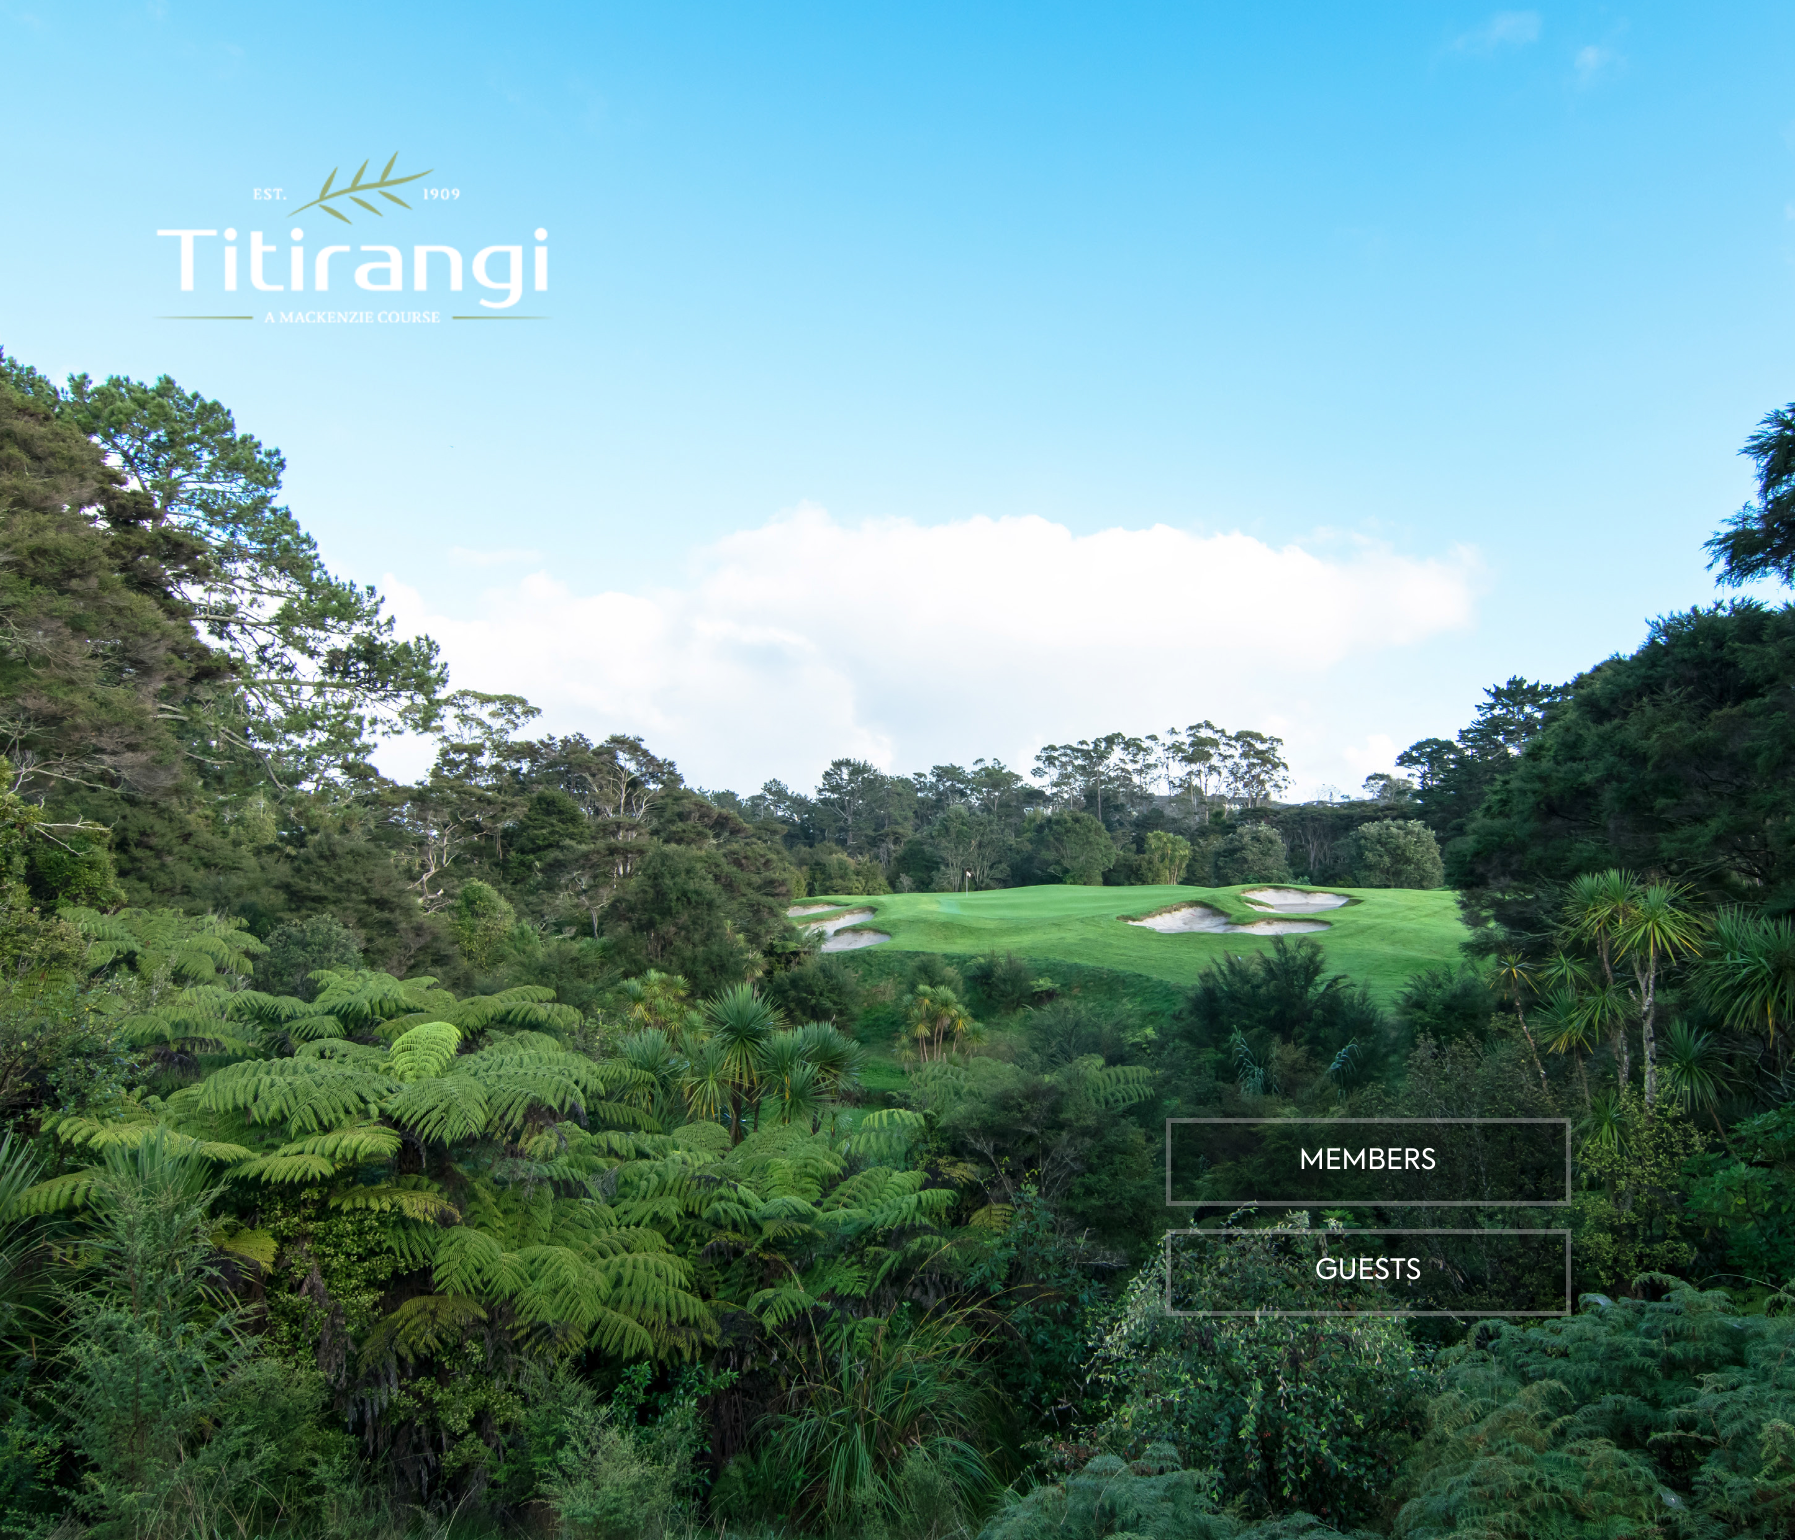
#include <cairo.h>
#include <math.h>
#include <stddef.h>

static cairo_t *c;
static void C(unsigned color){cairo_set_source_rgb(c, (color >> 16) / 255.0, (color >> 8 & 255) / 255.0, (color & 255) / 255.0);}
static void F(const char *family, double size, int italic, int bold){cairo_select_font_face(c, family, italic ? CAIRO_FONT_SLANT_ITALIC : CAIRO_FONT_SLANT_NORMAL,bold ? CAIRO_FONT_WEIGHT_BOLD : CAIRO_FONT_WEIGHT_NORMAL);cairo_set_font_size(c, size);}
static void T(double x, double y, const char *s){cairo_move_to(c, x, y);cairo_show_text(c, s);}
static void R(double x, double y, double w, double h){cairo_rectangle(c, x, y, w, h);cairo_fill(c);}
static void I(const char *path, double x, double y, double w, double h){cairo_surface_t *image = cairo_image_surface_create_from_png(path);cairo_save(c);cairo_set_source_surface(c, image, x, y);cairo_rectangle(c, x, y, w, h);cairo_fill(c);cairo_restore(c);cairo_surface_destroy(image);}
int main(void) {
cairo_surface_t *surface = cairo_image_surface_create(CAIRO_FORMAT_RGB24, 1795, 1540);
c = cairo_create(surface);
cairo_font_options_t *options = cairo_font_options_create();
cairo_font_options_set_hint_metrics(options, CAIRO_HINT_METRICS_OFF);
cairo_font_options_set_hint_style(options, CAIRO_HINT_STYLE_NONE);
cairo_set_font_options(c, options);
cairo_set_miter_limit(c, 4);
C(0xffffff);
cairo_paint(c);
I("1.png",0,0,1795,1540);
I("2.png",152,150,402,173);
cairo_set_source_rgba(c,0,0,0,0.3);
R(1166,1118,405,88);
cairo_rectangle(c,1168.5,1120.5,400,83);
cairo_set_source_rgba(c,1,1,1,0.3);
cairo_set_line_width(c,5);
cairo_stroke(c);
F("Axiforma",28,0,0);
C(0xffffff);
T(1299,1169,"MEMBERS");
cairo_set_source_rgba(c,0,0,0,0.3);
R(1166,1229,405,87);
cairo_rectangle(c,1168.5,1231.5,400,82);
cairo_set_source_rgba(c,1,1,1,0.3);
cairo_stroke(c);
C(0xffffff);
T(1315,1279,"GUESTS");
cairo_surface_write_to_png(surface, "o.png");
cairo_font_options_destroy(options);
cairo_destroy(c);
cairo_surface_destroy(surface);
return 0;
}
